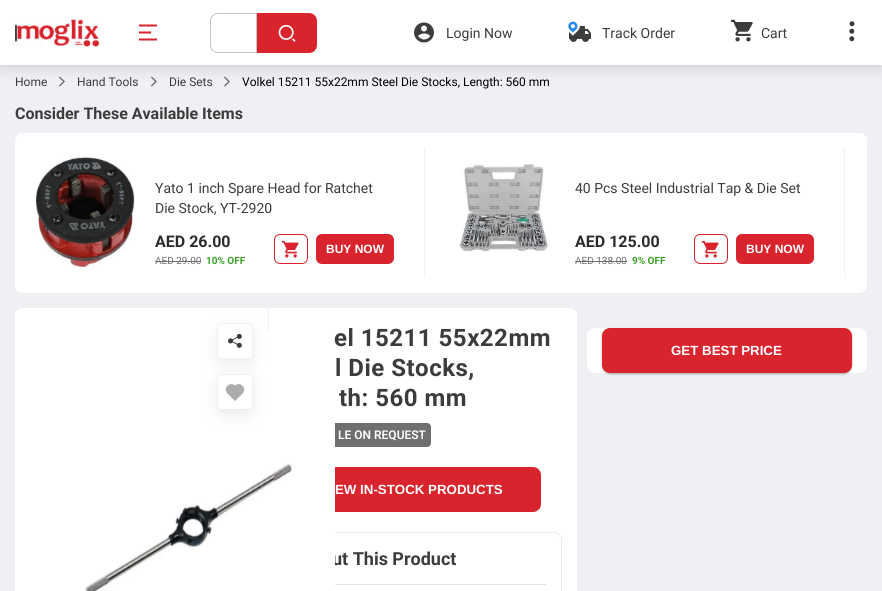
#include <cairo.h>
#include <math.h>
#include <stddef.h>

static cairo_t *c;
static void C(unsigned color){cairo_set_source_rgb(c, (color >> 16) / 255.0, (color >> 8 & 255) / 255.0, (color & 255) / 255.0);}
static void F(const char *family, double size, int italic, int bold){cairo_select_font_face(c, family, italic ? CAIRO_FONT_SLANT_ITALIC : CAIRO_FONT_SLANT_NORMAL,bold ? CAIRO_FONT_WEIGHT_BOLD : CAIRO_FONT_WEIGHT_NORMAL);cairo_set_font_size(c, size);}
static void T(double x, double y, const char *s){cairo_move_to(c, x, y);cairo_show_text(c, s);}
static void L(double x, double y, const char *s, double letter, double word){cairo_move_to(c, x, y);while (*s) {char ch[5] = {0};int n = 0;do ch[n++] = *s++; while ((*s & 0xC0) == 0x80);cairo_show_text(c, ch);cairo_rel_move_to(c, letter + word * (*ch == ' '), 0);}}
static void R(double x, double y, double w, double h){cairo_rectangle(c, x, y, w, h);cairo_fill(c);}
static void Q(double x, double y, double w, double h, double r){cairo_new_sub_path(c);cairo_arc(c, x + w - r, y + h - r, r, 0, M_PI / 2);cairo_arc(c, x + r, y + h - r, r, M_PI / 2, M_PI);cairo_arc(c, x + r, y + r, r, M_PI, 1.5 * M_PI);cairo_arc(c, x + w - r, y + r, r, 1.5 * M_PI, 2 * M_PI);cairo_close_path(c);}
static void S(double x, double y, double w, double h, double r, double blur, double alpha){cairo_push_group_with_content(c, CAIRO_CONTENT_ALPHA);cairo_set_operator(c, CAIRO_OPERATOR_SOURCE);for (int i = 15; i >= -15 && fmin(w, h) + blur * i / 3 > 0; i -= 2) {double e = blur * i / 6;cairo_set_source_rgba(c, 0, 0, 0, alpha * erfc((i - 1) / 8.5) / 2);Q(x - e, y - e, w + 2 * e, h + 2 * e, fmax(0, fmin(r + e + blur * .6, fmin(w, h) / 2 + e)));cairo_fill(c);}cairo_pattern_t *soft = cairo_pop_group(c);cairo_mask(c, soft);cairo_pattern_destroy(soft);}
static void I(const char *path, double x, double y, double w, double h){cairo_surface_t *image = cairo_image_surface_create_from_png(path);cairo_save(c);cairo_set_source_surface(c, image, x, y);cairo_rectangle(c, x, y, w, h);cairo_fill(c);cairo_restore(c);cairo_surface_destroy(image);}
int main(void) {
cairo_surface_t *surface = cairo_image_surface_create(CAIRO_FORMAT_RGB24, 882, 591);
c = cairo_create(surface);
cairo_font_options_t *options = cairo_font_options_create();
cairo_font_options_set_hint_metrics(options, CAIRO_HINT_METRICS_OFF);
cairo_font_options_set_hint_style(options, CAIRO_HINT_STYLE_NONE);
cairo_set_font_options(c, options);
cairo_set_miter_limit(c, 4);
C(0xefeff4);
cairo_paint(c);
I("8.png",59,76,6,11);
I("8.png",151,76,6,11);
I("8.png",224,76,6,11);
C(0x000000);
S(0,2,882,65,0,7.5,.15);
C(0xffffff);
R(0,0,882,65);
I("1.png",15,19,85,28);
I("2.png",139,24,18,17);
cairo_new_path(c);
cairo_move_to(c,218,13.5);
cairo_line_to(c,256.5,13.5);
cairo_line_to(c,256.5,52.5);
cairo_line_to(c,218,52.5);
cairo_curve_to(c,214,52.5,210.5,49,210.5,45);
cairo_line_to(c,210.5,21);
cairo_curve_to(c,210.5,17,214,13.5,218,13.5);
cairo_close_path(c);
C(0xc4c4c4);
cairo_set_line_width(c,1);
cairo_stroke(c);
C(0xd9232d);
cairo_new_path(c);
cairo_move_to(c,257,13);
cairo_line_to(c,309,13);
cairo_curve_to(c,313.5,13,317,16.5,317,21);
cairo_line_to(c,317,45);
cairo_curve_to(c,317,49.5,313.5,53,309,53);
cairo_line_to(c,257,53);
cairo_close_path(c);
cairo_fill(c);
I("3.png",278,24,18,18);
I("4.png",414,22,20,21);
F("Roboto",14,0,0);
C(0x3c3c3c);
T(446,38,"Login Now");
I("5.png",568,21,23,21);
T(602,38,"Track Order");
I("6.png",731,19,22,23);
T(761,38,"Cart");
I("7.png",849,21,6,21);
F("Roboto",12,0,0);
T(15,86,"Home");
T(77,86,"Hand Tools");
T(169,86,"Die Sets");
C(0x000000);
T(242,86,"Volkel 15211 55x22mm Steel Die Stocks, Length: 560 mm");
F("Roboto",16,0,1);
C(0x3c3c3c);
T(15,119,"Consider These Available Items");
C(0xffffff);
Q(15,133,852,160,8);
cairo_fill(c);
Q(15,133,420,160,8);
cairo_fill(c);
C(0xefeff4);
R(424,148,1,130);
I("9.png",35,157,100,110);
F("Roboto",14,0,0);
C(0x3c3c3c);
T(155,193,"Yato 1 inch Spare Head for Ratchet");
T(155,213,"Die Stock, YT-2920");
F("Roboto",16,0,1);
C(0x2b2b2b);
T(155,247,"AED 26.00");
F("Roboto",10,0,0);
C(0x6f6f6f);
T(155,264,"AED 29.00");
R(155,261,46,1);
F("Roboto",10,0,1);
C(0x3b9e26);
T(206,264,"10% OFF");
Q(274.5,234.5,33,29,5.5);
C(0xd9232d);
cairo_stroke(c);
I("10.png",281,240,18,18);
Q(316,234,78,30,6);
cairo_fill(c);
F("Liberation Sans",12,0,1);
C(0xffffff);
T(326,253,"BUY NOW");
C(0xefeff4);
R(844,148,1,130);
I("11.png",459,164,89,88);
F("Roboto",14,0,0);
C(0x3c3c3c);
T(575,193,"40 Pcs Steel Industrial Tap & Die Set");
F("Roboto",16,0,1);
C(0x2b2b2b);
T(575,247,"AED 125.00");
F("Roboto",10,0,0);
C(0x6f6f6f);
T(575,264,"AED 138.00");
R(575,261,52,1);
F("Roboto",10,0,1);
C(0x3b9e26);
T(632,264,"9% OFF");
Q(694.5,234.5,33,29,5.5);
C(0xd9232d);
cairo_stroke(c);
I("10.png",701,240,18,18);
Q(736,234,78,30,6);
cairo_fill(c);
F("Liberation Sans",12,0,1);
C(0xffffff);
T(746,253,"BUY NOW");
cairo_new_path(c);
cairo_move_to(c,863,133);
cairo_line_to(c,859,133);
cairo_curve_to(c,863.5,133,867,136.5,867,141);
cairo_line_to(c,867,282);
cairo_line_to(c,863,282);
cairo_curve_to(c,858.5,282,855,278.5,855,274);
cairo_line_to(c,855,141);
cairo_curve_to(c,855,136.5,858.5,133,863,133);
cairo_close_path(c);
cairo_fill(c);
Q(15,308,562,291,8);
cairo_fill(c);
C(0x6f6f6f);
Q(284,423,147,24,4);
cairo_fill(c);
C(0xd9232d);
Q(284,467,257,45,8);
cairo_fill(c);
Q(284.5,532.5,277,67,7.5);
C(0xebe9e9);
cairo_stroke(c);
F("Roboto",18,0,1);
C(0x3c3c3c);
T(332,565,"ut This Product");
I("14.png",85,333,250,258);
C(0xefeff4);
R(268,308,1,25);
C(0x414141);
S(217,328,36,36,4,7.5,.1);
C(0xffffff);
Q(217.5,323.5,35,35,3.5);
cairo_fill_preserve(c);
C(0xefeff4);
cairo_stroke(c);
I("12.png",228,333,14,15);
C(0x414141);
S(217,379,36,36,4,7.5,.1);
C(0xffffff);
Q(217.5,374.5,35,35,3.5);
cairo_fill_preserve(c);
C(0xefeff4);
cairo_stroke(c);
I("13.png",225,384,20,17);
F("Roboto",24,0,1);
C(0x3c3c3c);
L(334,346,"el 15211 55x22mm",.5,0);
L(335,376,"l Die Stocks,",.5,0);
L(339,406,"th: 560 mm",.5,0);
F("Roboto SemiBold",12,0,0);
C(0xffffff);
T(338,439,"LE ON REQUEST");
F("Liberation Sans",13.3,0,1);
T(335,494,"EW IN-STOCK PRODUCTS");
C(0xe3e3e3);
R(335,584,211,1);
C(0xffffff);
Q(587,328,280,45,8);
cairo_fill(c);
C(0x000000);
S(602,329,250,45,8,1,.3);
C(0xd9232d);
Q(602,328,250,45,8);
cairo_fill(c);
C(0xffffff);
T(671,355,"GET BEST PRICE");
cairo_surface_write_to_png(surface, "o.png");
cairo_font_options_destroy(options);
cairo_destroy(c);
cairo_surface_destroy(surface);
return 0;
}
